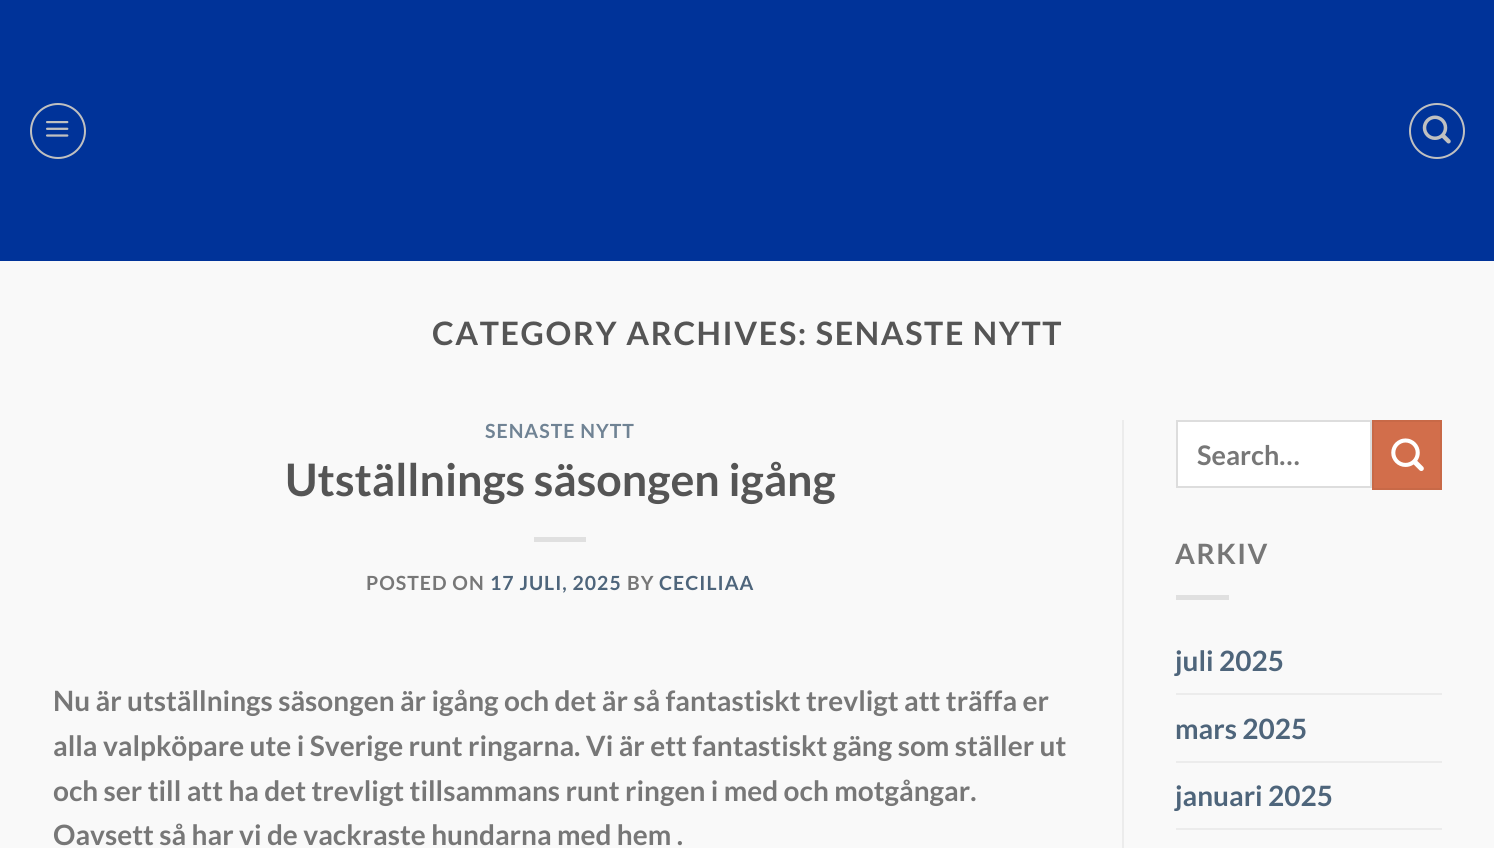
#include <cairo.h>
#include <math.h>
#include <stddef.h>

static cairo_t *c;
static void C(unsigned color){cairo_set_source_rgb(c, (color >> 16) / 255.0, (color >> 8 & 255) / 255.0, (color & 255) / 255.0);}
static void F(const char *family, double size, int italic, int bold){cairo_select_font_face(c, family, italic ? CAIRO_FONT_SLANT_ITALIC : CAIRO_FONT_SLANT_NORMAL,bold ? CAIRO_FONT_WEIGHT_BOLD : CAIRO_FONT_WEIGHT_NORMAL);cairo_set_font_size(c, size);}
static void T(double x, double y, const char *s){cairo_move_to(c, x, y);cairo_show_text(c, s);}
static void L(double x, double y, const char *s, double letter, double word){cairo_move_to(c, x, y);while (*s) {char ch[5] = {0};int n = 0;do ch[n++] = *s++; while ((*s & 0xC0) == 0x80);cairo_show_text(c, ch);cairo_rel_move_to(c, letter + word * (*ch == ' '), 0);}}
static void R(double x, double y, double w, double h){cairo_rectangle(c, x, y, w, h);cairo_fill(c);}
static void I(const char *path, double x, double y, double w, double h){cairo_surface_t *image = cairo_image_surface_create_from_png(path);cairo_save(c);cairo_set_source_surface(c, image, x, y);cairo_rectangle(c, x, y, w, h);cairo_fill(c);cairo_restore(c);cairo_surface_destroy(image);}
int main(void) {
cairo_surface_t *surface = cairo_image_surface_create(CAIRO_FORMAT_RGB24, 1494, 848);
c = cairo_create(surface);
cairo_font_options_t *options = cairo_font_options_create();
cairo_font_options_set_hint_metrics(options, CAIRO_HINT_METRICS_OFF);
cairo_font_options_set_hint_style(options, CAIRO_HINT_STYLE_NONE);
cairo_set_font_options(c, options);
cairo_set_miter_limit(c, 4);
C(0xf9f9f9);
cairo_paint(c);
C(0x003399);
R(0,0,1494,261);
cairo_arc(c,58,131,27,0,2 * M_PI);
C(0xc0c0c0);
cairo_stroke(c);
I("1.png",46,121,23,16);
cairo_arc(c,1437,131,27,0,2 * M_PI);
cairo_stroke(c);
I("2.png",1422,115,29,29);
F("Lato",32.25,0,1);
C(0x555555);
L(432,345,"CATEGORY ARCHIVES: SENASTE NYTT",1.6,0);
F("Lato",19.5,0,1);
C(0x708394);
L(485,438,"SENASTE NYTT",1,0);
F("Lato",44.75,0,1);
C(0x555555);
T(285,496,"Utställnings säsongen igång");
C(0xe0e0e0);
R(534,537,52,5);
F("Lato",19.5,0,1);
C(0x777777);
L(366,590,"POSTED ON",1,0);
C(0x4e657b);
L(490,590,"17 JULI, 2025",1,0);
C(0x777777);
L(627,590,"BY",1,0);
C(0x4e657b);
L(659,590,"CECILIAA",1,0);
F("Lato",28,0,1);
C(0x777777);
T(53,711,"Nu är utställnings säsongen är igång och det är så fantastiskt trevligt att träffa er");
T(53,756,"alla valpköpare ute i Sverige runt ringarna. Vi är ett fantastiskt gäng som ställer ut");
T(53,801,"och ser till att ha det trevligt tillsammans runt ringen i med och motgångar.");
T(53,845,"Oavsett så har vi de vackraste hundarna med hem .");
C(0xececec);
R(1122,420,2,428);
C(0xffffff);
cairo_rectangle(c,1177,421,194,66);
cairo_fill_preserve(c);
C(0xdddddd);
cairo_stroke(c);
F("Lato",27,0,1);
C(0x777777);
T(1197,465,"Search…");
C(0xd26e4b);
cairo_rectangle(c,1373,421,68,68);
cairo_fill_preserve(c);
C(0xc86947);
cairo_stroke(c);
I("3.png",1391,438,33,33);
F("Lato",28,0,1);
C(0x777777);
L(1175,564,"ARKIV",1.5,0);
C(0xe0e0e0);
R(1176,595,53,5);
C(0x4e657b);
T(1175,671,"juli 2025");
C(0xececec);
R(1176,693,266,2);
C(0x4e657b);
T(1175,739,"mars 2025");
C(0xececec);
R(1176,761,266,2);
C(0x4e657b);
T(1175,806,"januari 2025");
C(0xececec);
R(1176,828,266,2);
cairo_surface_write_to_png(surface, "o.png");
cairo_font_options_destroy(options);
cairo_destroy(c);
cairo_surface_destroy(surface);
return 0;
}
